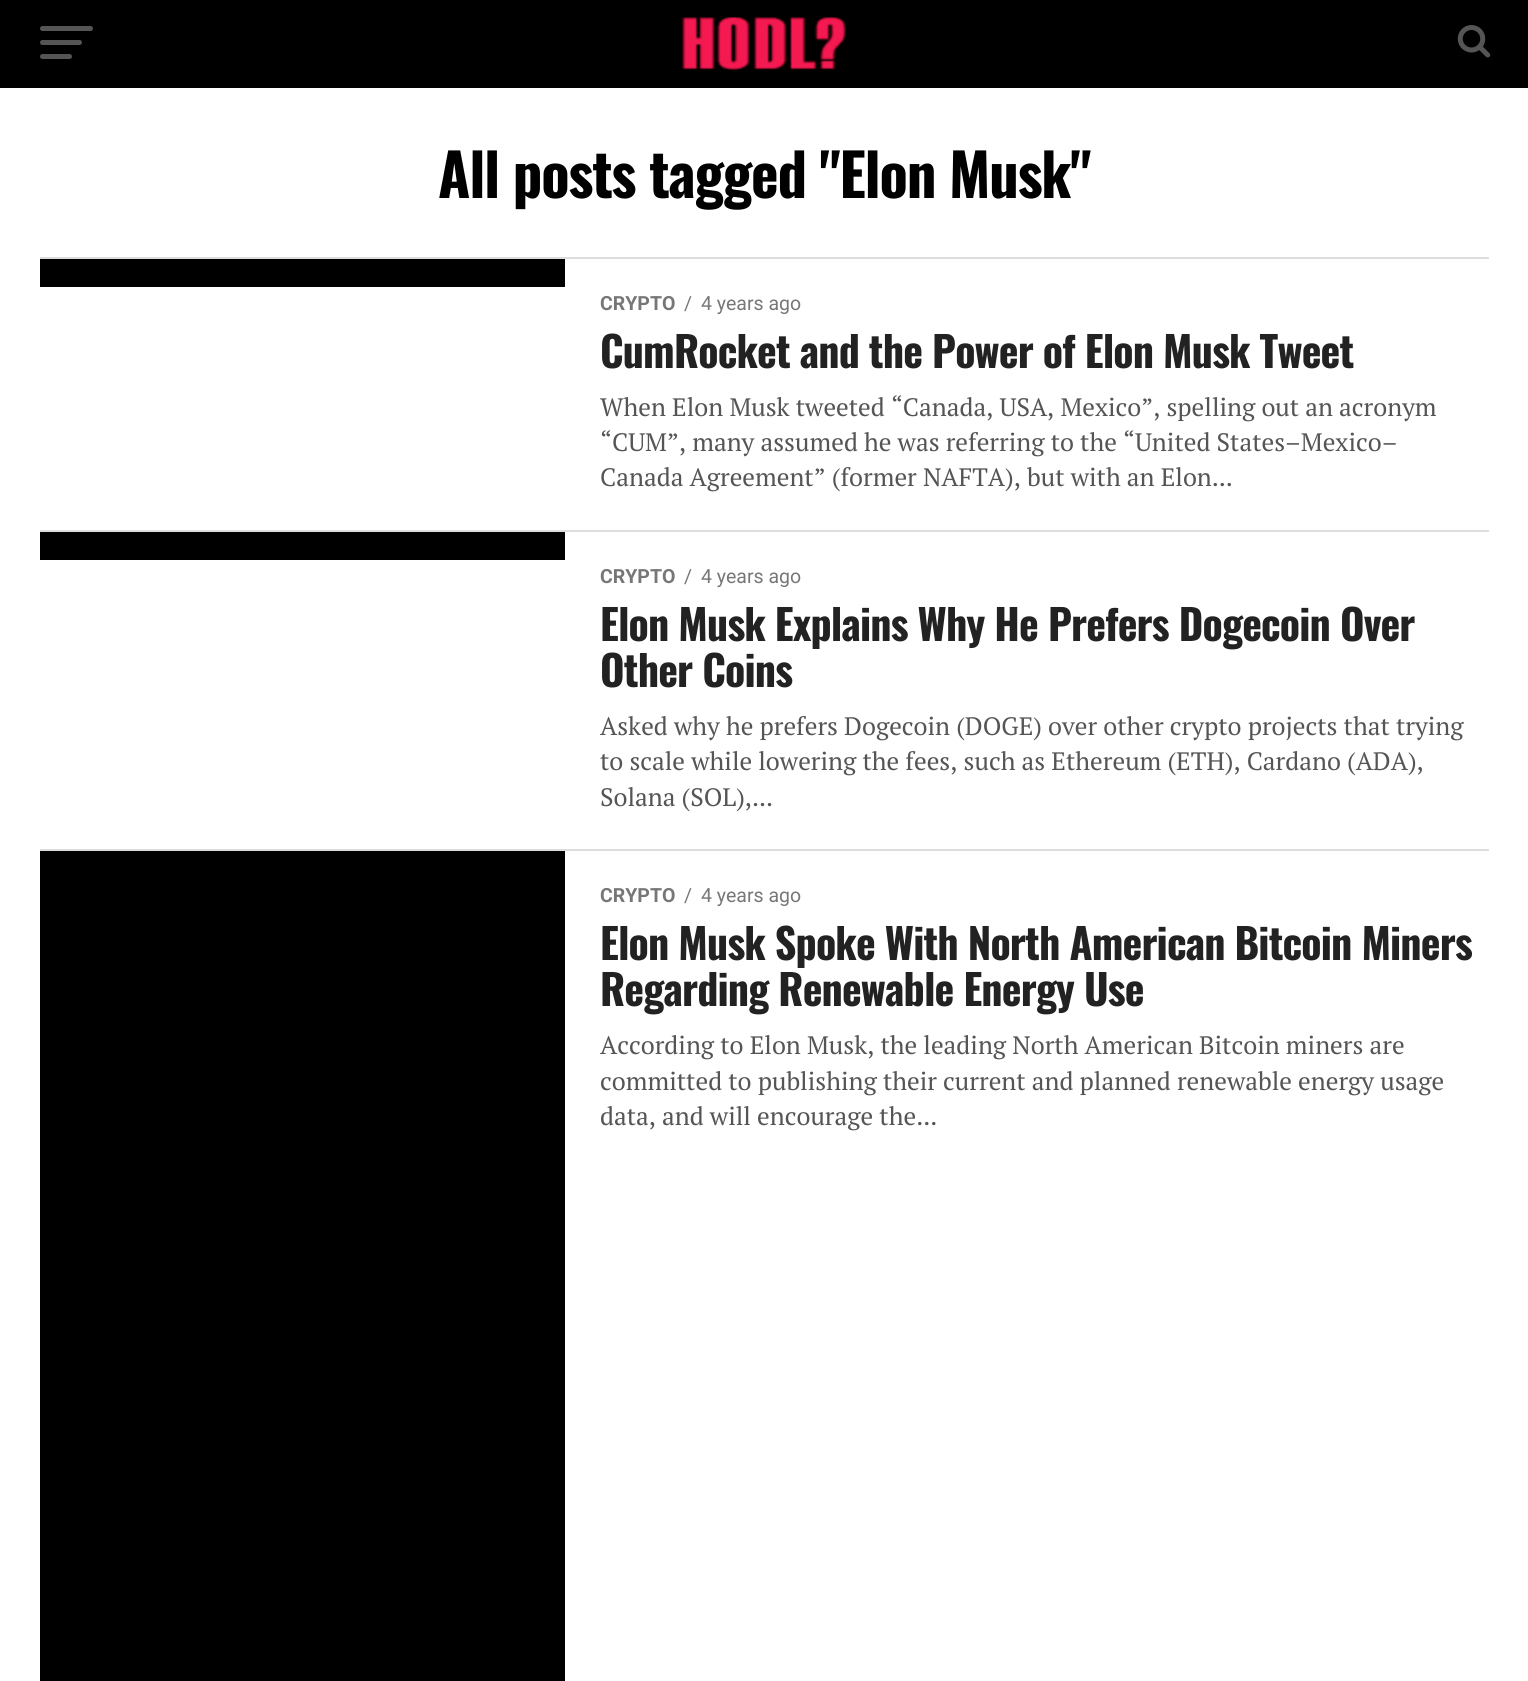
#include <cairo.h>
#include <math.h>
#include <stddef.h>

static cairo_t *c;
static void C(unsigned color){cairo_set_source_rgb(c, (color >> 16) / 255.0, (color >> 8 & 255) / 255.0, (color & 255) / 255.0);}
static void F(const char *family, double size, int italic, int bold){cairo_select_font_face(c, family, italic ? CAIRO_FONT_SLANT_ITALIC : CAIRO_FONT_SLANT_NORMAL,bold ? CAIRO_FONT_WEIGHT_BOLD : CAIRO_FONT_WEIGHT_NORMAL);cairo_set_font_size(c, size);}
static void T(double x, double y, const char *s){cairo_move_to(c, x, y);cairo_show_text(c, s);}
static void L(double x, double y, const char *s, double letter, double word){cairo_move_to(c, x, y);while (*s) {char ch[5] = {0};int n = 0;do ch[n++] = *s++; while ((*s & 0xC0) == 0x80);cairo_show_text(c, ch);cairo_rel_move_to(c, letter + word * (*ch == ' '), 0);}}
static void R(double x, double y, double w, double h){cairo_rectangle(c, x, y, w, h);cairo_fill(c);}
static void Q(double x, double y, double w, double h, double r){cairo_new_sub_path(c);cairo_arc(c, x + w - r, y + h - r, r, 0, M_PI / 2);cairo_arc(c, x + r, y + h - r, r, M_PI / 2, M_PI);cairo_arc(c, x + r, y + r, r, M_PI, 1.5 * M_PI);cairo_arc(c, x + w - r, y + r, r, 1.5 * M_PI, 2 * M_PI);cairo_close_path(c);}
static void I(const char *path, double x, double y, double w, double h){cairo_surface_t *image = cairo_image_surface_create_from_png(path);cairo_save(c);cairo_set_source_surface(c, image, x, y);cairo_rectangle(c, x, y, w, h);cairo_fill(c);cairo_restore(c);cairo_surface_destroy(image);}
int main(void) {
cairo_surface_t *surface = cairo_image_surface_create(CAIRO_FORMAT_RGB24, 1528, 1681);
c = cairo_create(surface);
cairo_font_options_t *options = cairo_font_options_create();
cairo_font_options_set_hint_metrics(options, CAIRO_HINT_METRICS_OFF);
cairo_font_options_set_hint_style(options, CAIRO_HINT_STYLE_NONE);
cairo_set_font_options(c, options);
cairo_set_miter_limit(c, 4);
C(0xffffff);
cairo_paint(c);
C(0x000000);
R(0,0,1528,88);
C(0x555555);
Q(40,26,53,5,2.5);
cairo_fill(c);
Q(40,40,42,5,2.5);
cairo_fill(c);
Q(40,54,32,5,2.5);
cairo_fill(c);
I("1.png",682,17,164,53);
I("2.png",1457,25,34,33);
F("Oswald",58.75,0,1);
C(0x000000);
L(438,198,"All posts tagged \"Elon Musk\"",-1.2,0);
C(0xdddddd);
R(40,257,1449,2);
C(0x000000);
R(40,259,525,28);
F("Roboto",19.5,0,1);
C(0x777777);
T(600,310,"CRYPTO");
F("Roboto",19.5,0,0);
T(684,310,"/");
T(701,310,"4 years ago");
F("Oswald",42,0,1);
C(0x222222);
L(600,368,"CumRocket and the Power of Elon Musk Tweet",-.85,0);
F("PT Serif",25.2,0,0);
C(0x555555);
T(600,416,"When Elon Musk tweeted “Canada, USA, Mexico”, spelling out an acronym");
T(600,451,"“CUM”, many assumed he was referring to the “United States–Mexico–");
T(600,486,"Canada Agreement” (former NAFTA), but with an Elon...");
C(0xdddddd);
R(40,530,1449,2);
C(0x000000);
R(40,532,525,28);
F("Roboto",19.5,0,1);
C(0x777777);
T(600,583,"CRYPTO");
F("Roboto",19.5,0,0);
T(684,583,"/");
T(701,583,"4 years ago");
F("Oswald",42,0,1);
C(0x222222);
L(600,641,"Elon Musk Explains Why He Prefers Dogecoin Over",-.85,0);
L(600,687,"Other Coins",-.85,0);
F("PT Serif",25.2,0,0);
C(0x555555);
T(600,735,"Asked why he prefers Dogecoin (DOGE) over other crypto projects that trying");
T(600,770,"to scale while lowering the fees, such as Ethereum (ETH), Cardano (ADA),");
T(600,806,"Solana (SOL),...");
C(0xdddddd);
R(40,849,1449,2);
C(0x000000);
R(40,851,525,830);
F("Roboto",19.5,0,1);
C(0x777777);
T(600,902,"CRYPTO");
F("Roboto",19.5,0,0);
T(684,902,"/");
T(701,902,"4 years ago");
F("Oswald",42,0,1);
C(0x222222);
L(600,960,"Elon Musk Spoke With North American Bitcoin Miners",-.85,0);
L(600,1006,"Regarding Renewable Energy Use",-.85,0);
F("PT Serif",25.2,0,0);
C(0x555555);
T(600,1054,"According to Elon Musk, the leading North American Bitcoin miners are");
T(600,1090,"committed to publishing their current and planned renewable energy usage");
T(600,1125,"data, and will encourage the...");
cairo_surface_write_to_png(surface, "o.png");
cairo_font_options_destroy(options);
cairo_destroy(c);
cairo_surface_destroy(surface);
return 0;
}
